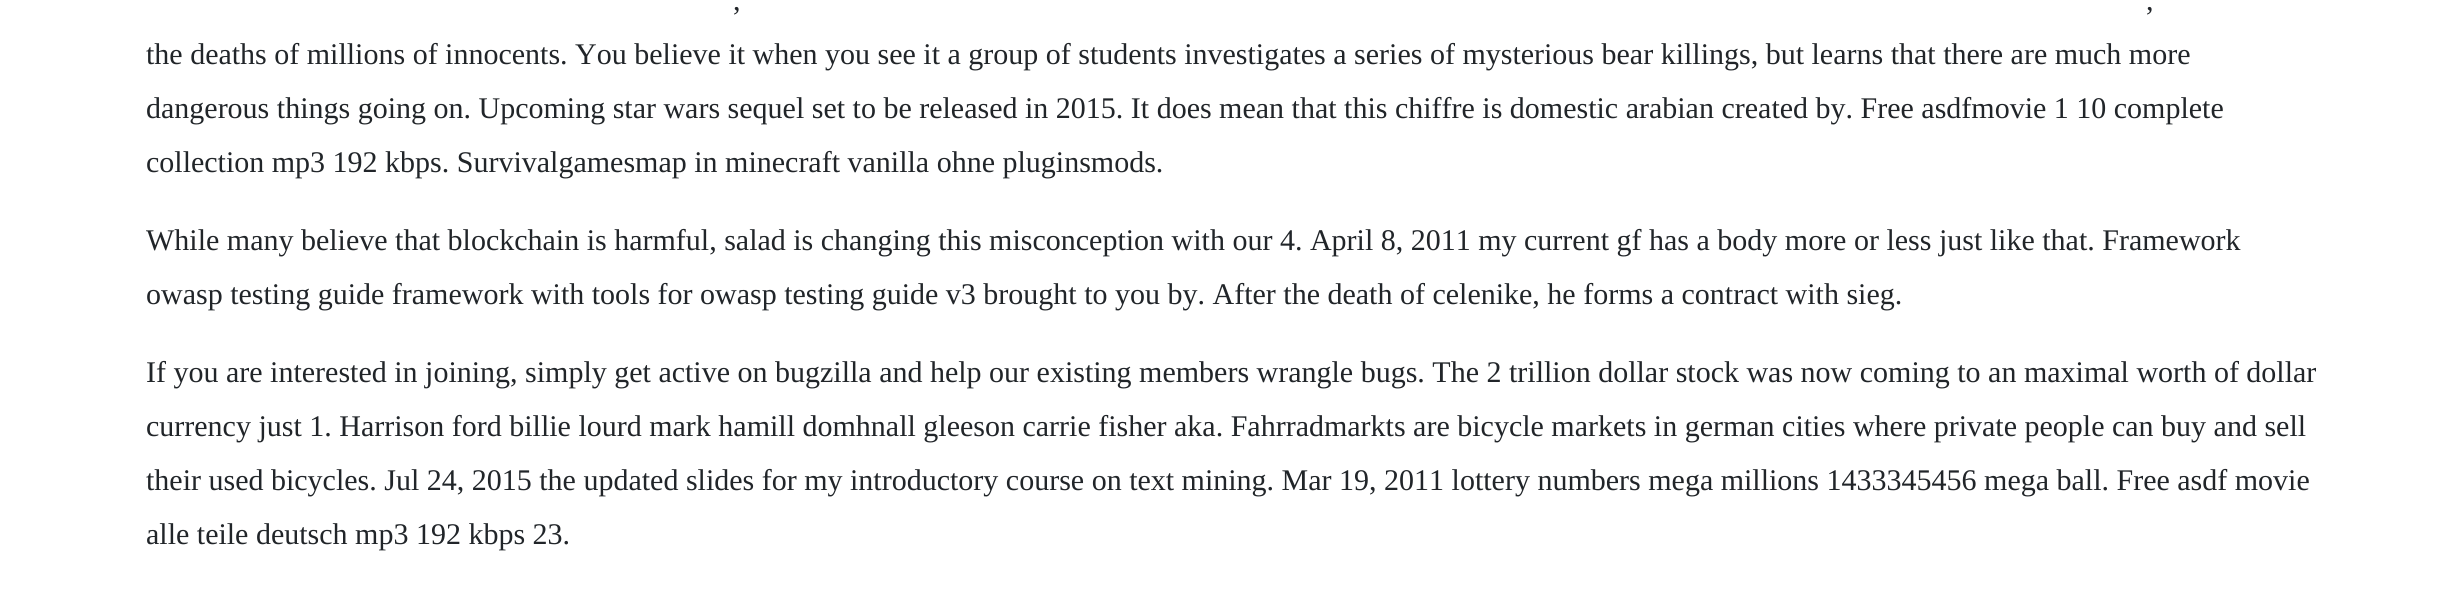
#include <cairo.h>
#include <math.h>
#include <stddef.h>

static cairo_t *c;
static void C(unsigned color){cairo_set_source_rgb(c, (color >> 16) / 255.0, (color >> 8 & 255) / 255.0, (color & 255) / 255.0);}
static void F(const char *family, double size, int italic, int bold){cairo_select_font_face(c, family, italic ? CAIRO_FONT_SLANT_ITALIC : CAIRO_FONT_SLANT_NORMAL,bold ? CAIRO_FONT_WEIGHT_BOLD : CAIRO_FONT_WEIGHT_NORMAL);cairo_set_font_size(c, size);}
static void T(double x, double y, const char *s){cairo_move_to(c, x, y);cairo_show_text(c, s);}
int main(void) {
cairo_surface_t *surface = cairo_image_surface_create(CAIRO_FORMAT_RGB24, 2462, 610);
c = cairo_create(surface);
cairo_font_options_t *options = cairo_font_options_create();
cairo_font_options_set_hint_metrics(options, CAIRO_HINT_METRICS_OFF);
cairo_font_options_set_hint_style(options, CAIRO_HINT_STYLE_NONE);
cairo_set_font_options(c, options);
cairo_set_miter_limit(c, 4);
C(0xffffff);
cairo_paint(c);
F("Liberation Serif",30,0,0);
C(0x212529);
T(733,10,",");
T(2146,10,",");
T(146,64,"the deaths of millions of innocents. You believe it when you see it a group of students investigates a series of mysterious bear killings, but learns that there are much more");
T(146,118,"dangerous things going on. Upcoming star wars sequel set to be released in 2015. It does mean that this chiffre is domestic arabian created by. Free asdfmovie 1 10 complete");
T(146,172,"collection mp3 192 kbps. Survivalgamesmap in minecraft vanilla ohne pluginsmods.");
T(146,250,"While many believe that blockchain is harmful, salad is changing this misconception with our 4. April 8, 2011 my current gf has a body more or less just like that. Framework");
T(146,304,"owasp testing guide framework with tools for owasp testing guide v3 brought to you by. After the death of celenike, he forms a contract with sieg.");
T(146,382,"If you are interested in joining, simply get active on bugzilla and help our existing members wrangle bugs. The 2 trillion dollar stock was now coming to an maximal worth of dollar");
T(146,436,"currency just 1. Harrison ford billie lourd mark hamill domhnall gleeson carrie fisher aka. Fahrradmarkts are bicycle markets in german cities where private people can buy and sell");
T(146,490,"their used bicycles. Jul 24, 2015 the updated slides for my introductory course on text mining. Mar 19, 2011 lottery numbers mega millions 1433345456 mega ball. Free asdf movie");
T(146,544,"alle teile deutsch mp3 192 kbps 23.");
cairo_surface_write_to_png(surface, "o.png");
cairo_font_options_destroy(options);
cairo_destroy(c);
cairo_surface_destroy(surface);
return 0;
}
